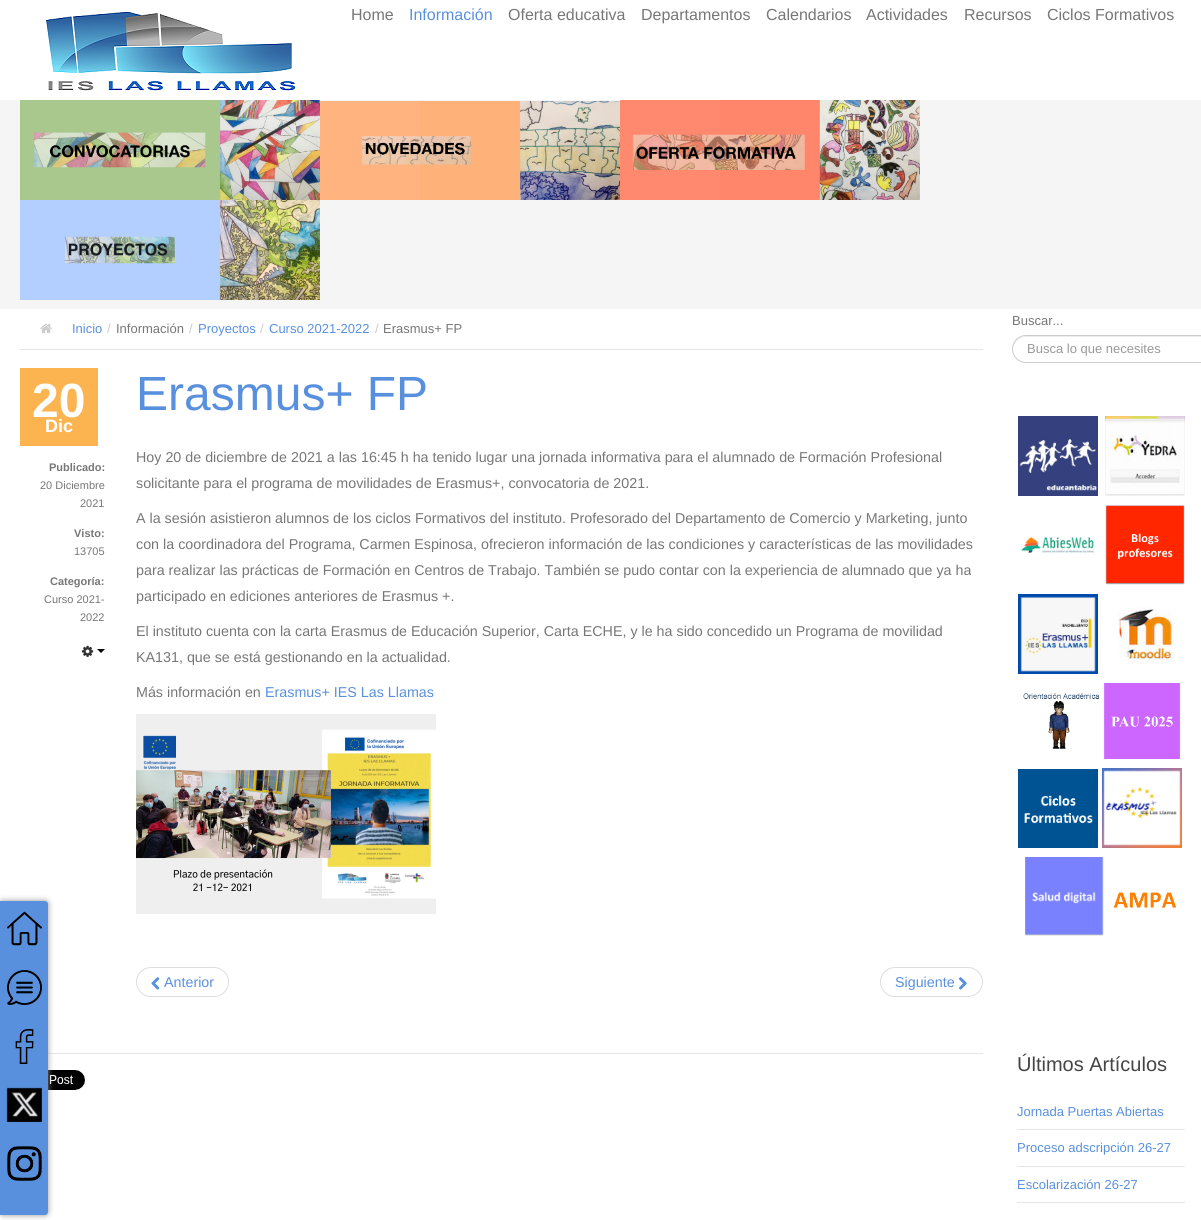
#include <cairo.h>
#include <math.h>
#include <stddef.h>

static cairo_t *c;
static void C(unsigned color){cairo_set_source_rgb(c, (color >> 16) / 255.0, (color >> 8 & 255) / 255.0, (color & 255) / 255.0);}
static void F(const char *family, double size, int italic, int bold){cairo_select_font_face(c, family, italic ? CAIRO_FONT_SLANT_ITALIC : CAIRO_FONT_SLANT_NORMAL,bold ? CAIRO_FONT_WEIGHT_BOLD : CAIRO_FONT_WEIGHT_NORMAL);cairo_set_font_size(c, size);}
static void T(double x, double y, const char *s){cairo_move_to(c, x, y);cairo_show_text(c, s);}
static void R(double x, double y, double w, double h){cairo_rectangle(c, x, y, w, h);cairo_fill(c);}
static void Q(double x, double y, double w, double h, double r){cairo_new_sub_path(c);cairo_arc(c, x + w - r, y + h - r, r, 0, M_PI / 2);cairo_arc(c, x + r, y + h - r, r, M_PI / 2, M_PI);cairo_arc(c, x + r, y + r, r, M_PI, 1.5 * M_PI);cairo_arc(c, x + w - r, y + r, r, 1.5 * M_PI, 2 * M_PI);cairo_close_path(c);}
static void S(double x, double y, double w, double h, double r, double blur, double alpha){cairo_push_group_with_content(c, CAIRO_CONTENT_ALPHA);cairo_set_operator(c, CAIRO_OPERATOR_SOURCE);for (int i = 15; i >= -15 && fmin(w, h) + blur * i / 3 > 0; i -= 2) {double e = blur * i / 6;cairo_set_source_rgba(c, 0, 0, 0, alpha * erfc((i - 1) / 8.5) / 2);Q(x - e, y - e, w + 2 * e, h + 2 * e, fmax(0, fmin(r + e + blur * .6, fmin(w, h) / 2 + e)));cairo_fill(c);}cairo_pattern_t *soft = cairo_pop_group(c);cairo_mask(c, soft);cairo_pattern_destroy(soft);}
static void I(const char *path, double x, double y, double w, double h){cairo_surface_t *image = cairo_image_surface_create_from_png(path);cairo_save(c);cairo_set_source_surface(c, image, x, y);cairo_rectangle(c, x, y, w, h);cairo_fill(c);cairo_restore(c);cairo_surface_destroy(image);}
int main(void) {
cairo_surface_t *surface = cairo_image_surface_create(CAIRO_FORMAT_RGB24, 1201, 1220);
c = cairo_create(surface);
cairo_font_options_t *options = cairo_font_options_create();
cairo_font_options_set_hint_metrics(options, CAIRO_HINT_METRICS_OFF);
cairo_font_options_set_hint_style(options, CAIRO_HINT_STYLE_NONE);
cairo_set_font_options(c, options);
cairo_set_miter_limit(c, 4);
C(0xffffff);
cairo_paint(c);
I("1.png",46,12,250,79);
F("Liberation Sans",16,0,0);
C(0x777777);
T(351,20,"Home");
C(0x5990de);
T(409,20,"Información");
C(0x777777);
T(508,20,"Oferta educativa");
T(641,20,"Departamentos");
T(766,20,"Calendarios");
T(866,20,"Actividades");
T(964,20,"Recursos");
T(1047,20,"Ciclos Formativos");
C(0xf5f5f5);
R(0,100,1201,209);
I("2.png",20,100,300,100);
I("3.png",320,101,300,99);
I("4.png",620,100,300,100);
I("5.png",20,200,300,100);
C(0xe5e5e5);
R(48,1053,935,1);
I("16.png",48,1070,37,20);
C(0x939393);
S(0,901,48,314,3,3,1);
C(0x5990de);
cairo_new_path(c);
cairo_move_to(c,0,901);
cairo_line_to(c,45,901);
cairo_curve_to(c,46.5,901,48,902.5,48,904);
cairo_line_to(c,48,1212);
cairo_curve_to(c,48,1213.5,46.5,1215,45,1215);
cairo_line_to(c,0,1215);
cairo_close_path(c);
cairo_fill(c);
I("6.png",7,911,35,35);
I("7.png",7,970,35,35);
I("8.png",15,1029,19,35);
I("9.png",6,1087,36,35);
I("10.png",7,1146,35,35);
C(0xe5e5e5);
R(20,349,963,1);
I("11.png",40,323,12,10);
F("Liberation Sans",13,0,0);
C(0x5990de);
T(72,333,"Inicio");
C(0xcccccc);
T(107,333,"/");
C(0x777777);
T(116,333,"Información");
C(0xcccccc);
T(189,333,"/");
C(0x5990de);
T(198,333,"Proyectos");
C(0xcccccc);
T(260,333,"/");
C(0x5990de);
T(269,333,"Curso 2021-2022");
C(0xcccccc);
T(375,333,"/");
C(0x777777);
T(383,333,"Erasmus+ FP");
C(0xfbb450);
R(20,368,78,78);
F("Liberation Sans",48,0,1);
C(0xffffff);
T(32,417,"20");
F("Liberation Sans",18,0,1);
T(45,432,"Dic");
F("Liberation Sans",11,0,1);
C(0x777777);
T(49,471,"Publicado:");
F("Liberation Sans",11,0,0);
T(40,489,"20 Diciembre");
T(80,507,"2021");
F("Liberation Sans",11,0,1);
T(74,537,"Visto:");
F("Liberation Sans",11,0,0);
T(74,555,"13705");
F("Liberation Sans",11,0,1);
T(50,585,"Categoría:");
F("Liberation Sans",11,0,0);
T(44,603,"Curso 2021-");
T(80,621,"2022");
I("12.png",82,645,12,12);
C(0x000000);
cairo_new_path(c);
cairo_move_to(c,97,649);
cairo_line_to(c,105,649);
cairo_line_to(c,101,653);
cairo_close_path(c);
cairo_fill(c);
F("Liberation Sans",48,0,0);
C(0x5990de);
T(136,410,"Erasmus+ FP");
F("Liberation Sans",14.3,0,0);
C(0x777777);
T(136,462,"Hoy 20 de diciembre de 2021 a las 16:45 h ha tenido lugar una jornada informativa para el alumnado de Formación Profesional");
T(136,488,"solicitante para el programa de movilidades de Erasmus+, convocatoria de 2021.");
T(136,523,"A la sesión asistieron alumnos de los ciclos Formativos del instituto. Profesorado del Departamento de Comercio y Marketing, junto");
T(136,549,"con la coordinadora del Programa, Carmen Espinosa, ofrecieron información de las condiciones y características de las movilidades");
T(136,575,"para realizar las prácticas de Formación en Centros de Trabajo. También se pudo contar con la experiencia de alumnado que ya ha");
T(136,601,"participado en ediciones anteriores de Erasmus +.");
T(136,636,"El instituto cuenta con la carta Erasmus de Educación Superior, Carta ECHE, y le ha sido concedido un Programa de movilidad");
T(136,662,"KA131, que se está gestionando en la actualidad.");
T(136,697,"Más información en");
C(0x5990de);
T(265,697,"Erasmus+ IES Las Llamas");
I("13.png",136,714,300,200);
Q(136.5,967.5,92,29,14.5);
C(0xdddddd);
cairo_set_line_width(c,1);
cairo_stroke(c);
I("14.png",151,977,9,13);
C(0x5990de);
T(164,987,"Anterior");
Q(880.5,967.5,102,29,14.5);
C(0xdddddd);
cairo_stroke(c);
C(0x5990de);
T(895,987,"Siguiente");
I("15.png",959,977,8,13);
F("Liberation Sans",13,0,0);
C(0x777777);
T(1012,325,"Buscar...");
C(0xececec);
cairo_new_path(c);
cairo_move_to(c,1026,337);
cairo_line_to(c,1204,337);
cairo_curve_to(c,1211,337,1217,343,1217,350);
cairo_curve_to(c,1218,329,1182,336,1174,336);
cairo_line_to(c,1056,336);
cairo_curve_to(c,1048,336,1012,329,1013,350);
cairo_curve_to(c,1013,343,1019,337,1026,337);
cairo_close_path(c);
cairo_fill(c);
Q(1012.5,335.5,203,27,13.5);
C(0xcccccc);
cairo_stroke(c);
C(0x999999);
T(1027,353,"Busca lo que necesites");
I("17.png",1018,416,80,80);
I("18.png",1105,416,80,80);
I("19.png",1021,537,73,16);
I("20.png",1105,505,80,80);
I("21.png",1018,594,80,80);
I("22.png",1118,607,58,57);
I("23.png",1023,693,76,56);
I("24.png",1103,683,78,76);
I("25.png",1018,769,80,79);
I("26.png",1102,768,80,80);
I("27.png",1025,857,79,79);
I("28.png",1113,892,64,16);
F("Liberation Sans",20,0,0);
C(0x444444);
T(1017,1071,"Últimos Artículos");
C(0xe5e5e5);
R(1017,1129,168,1);
F("Liberation Sans",13,0,0);
C(0x5990de);
T(1017,1116,"Jornada Puertas Abiertas");
C(0xe5e5e5);
R(1017,1166,168,1);
C(0x5990de);
T(1017,1152,"Proceso adscripción 26-27");
C(0xe5e5e5);
R(1017,1202,168,1);
C(0x5990de);
T(1017,1189,"Escolarización 26-27");
cairo_surface_write_to_png(surface, "o.png");
cairo_font_options_destroy(options);
cairo_destroy(c);
cairo_surface_destroy(surface);
return 0;
}
